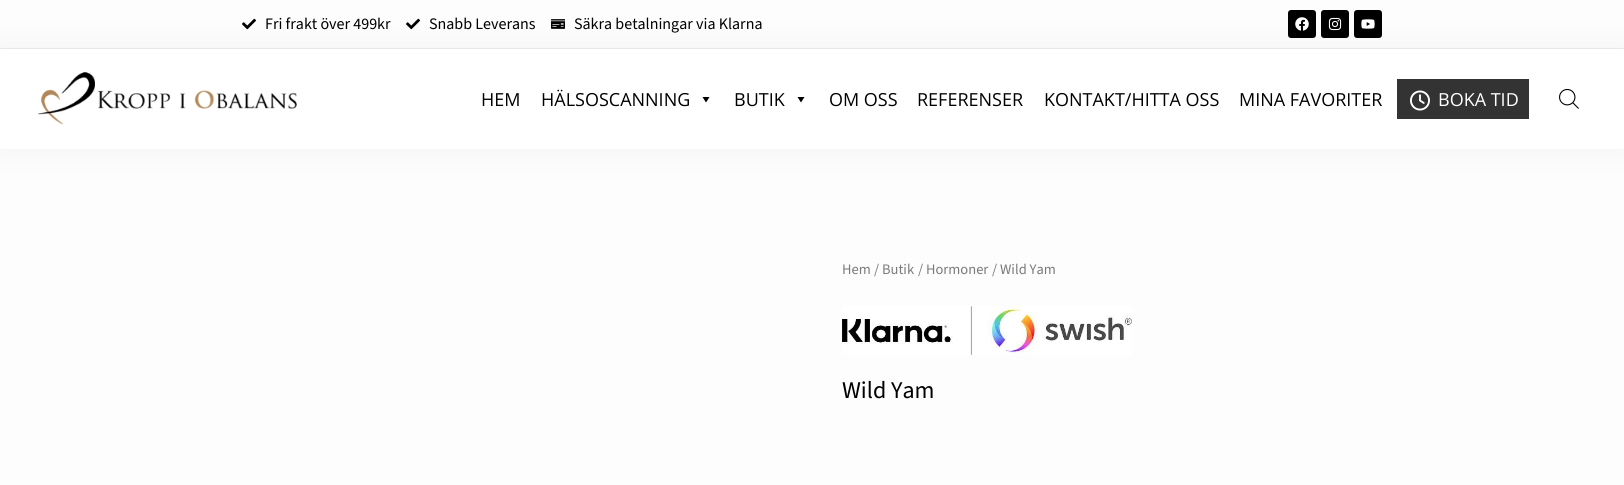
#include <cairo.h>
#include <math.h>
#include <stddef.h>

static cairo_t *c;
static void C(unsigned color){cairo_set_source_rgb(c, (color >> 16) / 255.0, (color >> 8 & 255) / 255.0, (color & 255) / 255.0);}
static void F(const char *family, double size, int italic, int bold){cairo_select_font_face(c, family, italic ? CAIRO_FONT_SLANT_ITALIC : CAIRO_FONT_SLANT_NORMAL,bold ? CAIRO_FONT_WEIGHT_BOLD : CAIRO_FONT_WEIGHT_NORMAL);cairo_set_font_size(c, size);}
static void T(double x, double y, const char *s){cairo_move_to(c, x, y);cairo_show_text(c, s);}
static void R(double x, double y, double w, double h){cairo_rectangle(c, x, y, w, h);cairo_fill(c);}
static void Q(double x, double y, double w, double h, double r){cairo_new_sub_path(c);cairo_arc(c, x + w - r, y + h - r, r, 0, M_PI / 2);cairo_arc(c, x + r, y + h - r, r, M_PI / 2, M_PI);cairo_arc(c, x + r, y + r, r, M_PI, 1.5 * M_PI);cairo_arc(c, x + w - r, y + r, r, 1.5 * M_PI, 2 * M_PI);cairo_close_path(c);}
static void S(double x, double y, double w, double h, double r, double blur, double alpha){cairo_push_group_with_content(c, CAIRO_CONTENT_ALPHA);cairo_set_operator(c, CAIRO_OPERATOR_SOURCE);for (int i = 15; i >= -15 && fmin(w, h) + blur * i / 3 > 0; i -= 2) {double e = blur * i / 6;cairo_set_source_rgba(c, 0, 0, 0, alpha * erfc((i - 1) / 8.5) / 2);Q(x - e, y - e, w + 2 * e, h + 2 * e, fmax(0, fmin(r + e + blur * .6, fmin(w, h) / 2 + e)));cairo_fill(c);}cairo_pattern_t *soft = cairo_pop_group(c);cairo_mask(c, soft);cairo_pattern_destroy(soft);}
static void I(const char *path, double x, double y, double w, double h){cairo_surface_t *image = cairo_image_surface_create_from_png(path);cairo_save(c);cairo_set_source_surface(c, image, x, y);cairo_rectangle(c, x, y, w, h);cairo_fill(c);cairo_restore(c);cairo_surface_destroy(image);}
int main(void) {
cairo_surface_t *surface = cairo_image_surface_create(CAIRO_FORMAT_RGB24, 1624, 485);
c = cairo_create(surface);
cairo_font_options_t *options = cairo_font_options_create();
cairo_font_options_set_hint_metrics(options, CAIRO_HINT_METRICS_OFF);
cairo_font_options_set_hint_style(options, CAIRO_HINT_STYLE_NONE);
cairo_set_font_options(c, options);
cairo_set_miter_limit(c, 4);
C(0xfdfdfd);
cairo_paint(c);
C(0xeeeeee);
R(0,48,1624,1);
I("1.png",242,18,14,12);
F("Source Sans 3",16,0,0);
C(0x000000);
T(265,29,"Fri frakt över 499kr");
I("1.png",406,18,14,12);
T(429,29,"Snabb Leverans");
I("2.png",551,19,14,10);
T(574,29,"Säkra betalningar via Klarna");
Q(1288,10,28,28,3);
cairo_fill(c);
I("3.png",1295,17,14,14);
Q(1321,10,28,28,3);
cairo_fill(c);
I("4.png",1328,17,14,14);
Q(1354,10,28,28,3);
cairo_fill(c);
I("5.png",1361,19,14,10);
C(0x000000);
S(0,49,1624,100,0,15,.05);
C(0xffffff);
R(0,49,1624,100);
I("6.png",38,72,259,53);
F("Open Sans",18,0,0);
C(0x000000);
T(481,106,"HEM");
T(541,106,"HÄLSOSCANNING");
cairo_new_path(c);
cairo_move_to(c,709.5,97);
cairo_line_to(c,706,102.5);
cairo_line_to(c,702.5,97);
cairo_close_path(c);
cairo_fill(c);
T(734,106,"BUTIK");
cairo_new_path(c);
cairo_move_to(c,804.5,97);
cairo_line_to(c,801,102.5);
cairo_line_to(c,797.5,97);
cairo_close_path(c);
cairo_fill(c);
T(829,106,"OM OSS");
T(917,106,"REFERENSER");
T(1044,106,"KONTAKT/HITTA OSS");
T(1239,106,"MINA FAVORITER");
C(0x333333);
R(1397,79,132,40);
I("7.png",1410,90,20,21);
C(0xffffff);
T(1438,106,"BOKA TID");
I("8.png",1559,89,20,20);
F("Source Sans 3",14.5,0,0);
C(0x7a7a7a);
T(842,274,"Hem");
T(874,274,"/");
T(882,274,"Butik");
T(918,274,"/");
T(926,274,"Hormoner");
T(992,274,"/ Wild Yam");
I("9.png",842,306,290,49);
F("Source Sans 3",24,0,0);
C(0x000000);
T(842,398,"Wild Yam");
cairo_surface_write_to_png(surface, "o.png");
cairo_font_options_destroy(options);
cairo_destroy(c);
cairo_surface_destroy(surface);
return 0;
}
